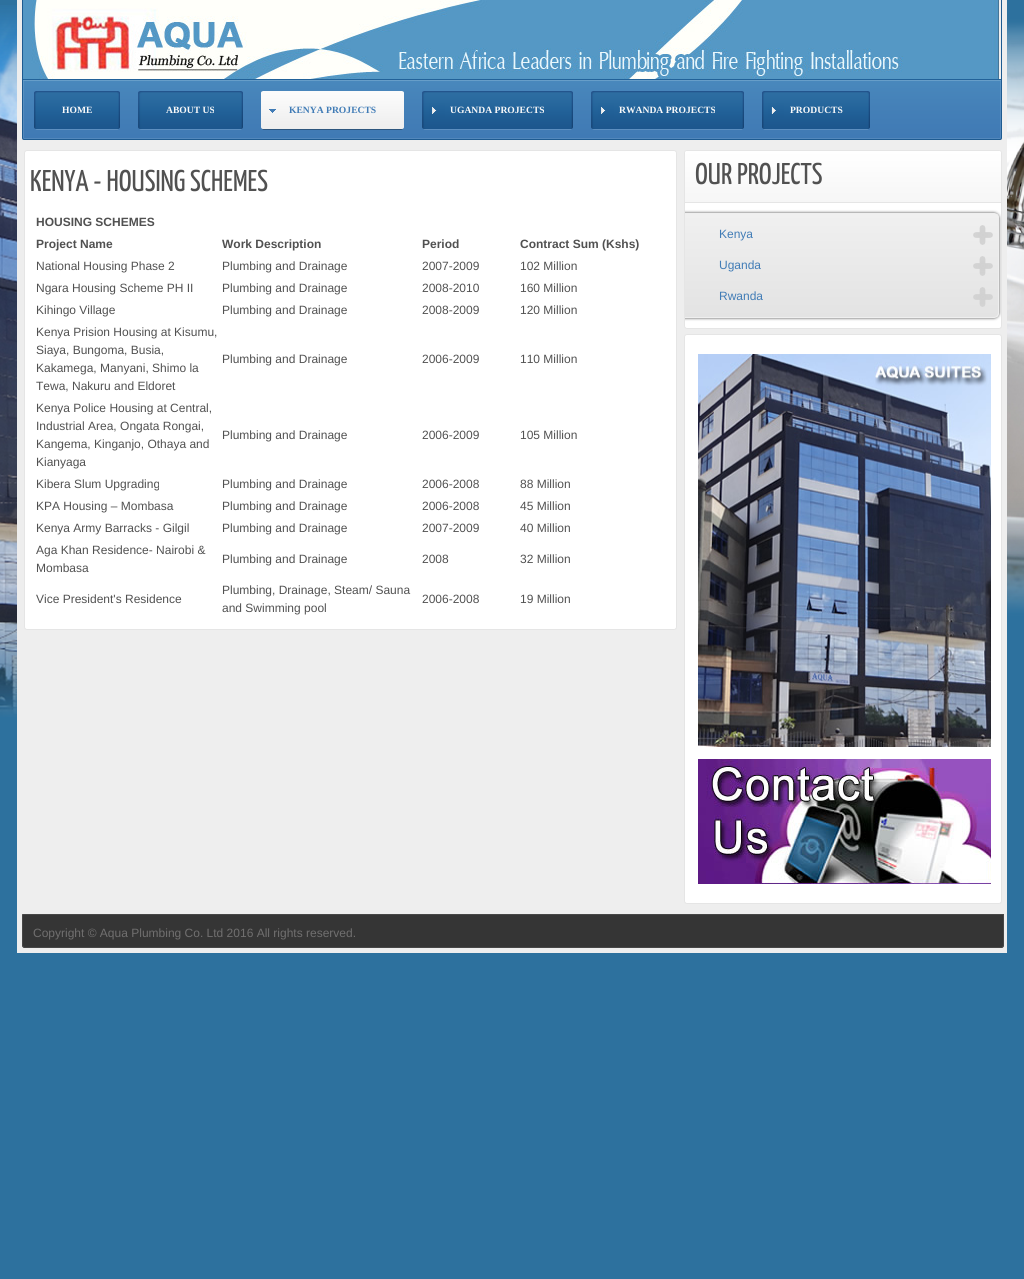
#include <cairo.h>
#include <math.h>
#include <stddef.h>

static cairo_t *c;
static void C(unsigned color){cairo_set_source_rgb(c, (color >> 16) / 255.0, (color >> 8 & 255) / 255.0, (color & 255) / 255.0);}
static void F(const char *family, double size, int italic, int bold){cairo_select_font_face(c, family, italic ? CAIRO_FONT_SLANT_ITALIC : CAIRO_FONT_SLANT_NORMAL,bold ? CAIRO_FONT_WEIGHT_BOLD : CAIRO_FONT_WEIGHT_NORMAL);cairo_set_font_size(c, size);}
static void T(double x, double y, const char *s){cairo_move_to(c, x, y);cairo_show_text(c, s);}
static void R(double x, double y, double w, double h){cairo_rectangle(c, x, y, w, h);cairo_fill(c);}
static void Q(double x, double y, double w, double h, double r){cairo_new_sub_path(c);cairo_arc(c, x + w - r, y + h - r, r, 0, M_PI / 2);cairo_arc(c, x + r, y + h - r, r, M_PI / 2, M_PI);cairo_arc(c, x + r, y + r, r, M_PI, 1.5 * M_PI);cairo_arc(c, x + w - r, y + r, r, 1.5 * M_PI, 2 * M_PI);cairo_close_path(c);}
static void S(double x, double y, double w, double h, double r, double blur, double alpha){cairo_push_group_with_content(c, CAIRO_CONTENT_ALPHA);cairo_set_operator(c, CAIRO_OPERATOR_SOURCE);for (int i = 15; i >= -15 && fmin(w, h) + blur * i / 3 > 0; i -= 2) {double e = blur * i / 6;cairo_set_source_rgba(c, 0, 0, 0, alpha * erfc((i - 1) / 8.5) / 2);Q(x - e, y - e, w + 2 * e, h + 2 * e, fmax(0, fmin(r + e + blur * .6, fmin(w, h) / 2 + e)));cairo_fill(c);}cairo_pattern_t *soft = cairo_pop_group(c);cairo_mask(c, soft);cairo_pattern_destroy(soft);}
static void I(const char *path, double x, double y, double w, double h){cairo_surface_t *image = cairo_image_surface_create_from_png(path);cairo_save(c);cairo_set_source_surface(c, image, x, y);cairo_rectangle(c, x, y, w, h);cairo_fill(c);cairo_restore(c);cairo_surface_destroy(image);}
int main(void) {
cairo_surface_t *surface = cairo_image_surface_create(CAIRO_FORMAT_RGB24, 1024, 1279);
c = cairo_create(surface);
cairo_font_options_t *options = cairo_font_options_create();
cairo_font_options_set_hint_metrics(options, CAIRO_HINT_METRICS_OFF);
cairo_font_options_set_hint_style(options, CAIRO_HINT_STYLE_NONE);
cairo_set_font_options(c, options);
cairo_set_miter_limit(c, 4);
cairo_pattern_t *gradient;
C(0x2d719e);
cairo_paint(c);
I("1.png",0,5,1024,712);
C(0xeeeeee);
R(17,0,990,953);
I("2.png",23,0,976,79);
C(0x1e5b91);
R(1001,0,1,79);
R(22,0,1,79);
I("3.png",22,79,650,61);
I("4.png",672,79,330,61);
I("5.png",34,91,83,39);
I("6.png",117,91,12,39);
F("Liberation Serif",9.6,0,1);
C(0xf9f9f9);
T(62,113,"HOME");
I("7.png",138,91,102,39);
I("6.png",240,91,12,39);
T(166,113,"ABOUT US");
I("8.png",261,91,140,39);
I("9.png",401,91,12,39);
C(0x417cb6);
T(289,113,"KENYA PROJECTS");
I("10.png",422,91,148,39);
I("6.png",570,91,12,39);
C(0xf9f9f9);
T(450,113,"UGANDA PROJECTS");
I("11.png",591,91,150,39);
I("6.png",741,91,12,39);
T(619,113,"RWANDA PROJECTS");
I("12.png",762,91,105,39);
I("6.png",867,91,12,39);
T(790,113,"PRODUCTS");
C(0xffffff);
Q(684.5,150.5,317,178,2.5);
cairo_fill_preserve(c);
C(0xe5e5e5);
cairo_set_line_width(c,1);
cairo_stroke(c);
cairo_save(c);
Q(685,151,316,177,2);
cairo_clip(c);
C(0x444444);
S(676,213,323,105,5,1.5,1);
cairo_restore(c);
C(0xffffff);
Q(24.5,150.5,652,479,2.5);
cairo_fill_preserve(c);
C(0xe5e5e5);
cairo_stroke(c);
F("Yanone Kaffeesatz",30,0,0);
C(0x515151);
T(30,191,"KENYA - HOUSING SCHEMES");
F("Liberation Sans",12,0,1);
T(36,226,"HOUSING SCHEMES");
T(36,248,"Project Name");
T(222,248,"Work Description");
T(422,248,"Period");
T(520,248,"Contract Sum (Kshs)");
F("Liberation Sans",12,0,0);
T(36,270,"National Housing Phase 2");
T(222,270,"Plumbing and Drainage");
T(422,270,"2007-2009");
T(520,270,"102 Million");
T(36,292,"Ngara Housing Scheme PH II");
T(222,292,"Plumbing and Drainage");
T(422,292,"2008-2010");
T(520,292,"160 Million");
T(36,314,"Kihingo Village");
T(222,314,"Plumbing and Drainage");
T(422,314,"2008-2009");
T(520,314,"120 Million");
T(36,336,"Kenya Prision Housing at Kisumu,");
T(36,354,"Siaya, Bungoma, Busia,");
T(36,372,"Kakamega, Manyani, Shimo la");
T(36,390,"Tewa, Nakuru and Eldoret");
T(222,363,"Plumbing and Drainage");
T(422,363,"2006-2009");
T(520,363,"110 Million");
T(36,412,"Kenya Police Housing at Central,");
T(36,430,"Industrial Area, Ongata Rongai,");
T(36,448,"Kangema, Kinganjo, Othaya and");
T(36,466,"Kianyaga");
T(222,439,"Plumbing and Drainage");
T(422,439,"2006-2009");
T(520,439,"105 Million");
T(36,488,"Kibera Slum Upgrading");
T(222,488,"Plumbing and Drainage");
T(422,488,"2006-2008");
T(520,488,"88 Million");
T(36,510,"KPA Housing – Mombasa");
T(222,510,"Plumbing and Drainage");
T(422,510,"2006-2008");
T(520,510,"45 Million");
T(36,532,"Kenya Army Barracks - Gilgil");
T(222,532,"Plumbing and Drainage");
T(422,532,"2007-2009");
T(520,532,"40 Million");
T(36,554,"Aga Khan Residence- Nairobi &");
T(36,572,"Mombasa");
T(222,563,"Plumbing and Drainage");
T(422,563,"2008");
T(520,563,"32 Million");
T(36,603,"Vice President's Residence");
T(222,594,"Plumbing, Drainage, Steam/ Sauna");
T(222,612,"and Swimming pool");
T(422,603,"2006-2008");
T(520,603,"19 Million");
I("13.png",685,151,316,51);
C(0xe5e5e5);
R(685,202,316,1);
F("Yanone Kaffeesatz",30,0,0);
C(0x515151);
T(695,184,"OUR PROJECTS");
cairo_save(c);
Q(676,213,323,105,5);
cairo_clip(c);
gradient = cairo_pattern_create_linear(838,214,838,317);
cairo_pattern_add_color_stop_rgba(gradient,0,0.941,0.941,0.941,1);
cairo_pattern_add_color_stop_rgba(gradient,1,0.89,0.89,0.89,1);
cairo_set_source(c,gradient);
cairo_pattern_destroy(gradient);
R(685,214,314,103);
cairo_restore(c);
C(0xefefef);
cairo_new_path(c);
cairo_move_to(c,685,318);
cairo_line_to(c,994,318);
cairo_curve_to(c,997,318,999,316,999,313);
cairo_line_to(c,999,218);
cairo_curve_to(c,999,215,997,213,994,213);
cairo_line_to(c,685,213);
cairo_line_to(c,685,214);
cairo_line_to(c,994,214);
cairo_curve_to(c,996,214,998,216,998,218);
cairo_line_to(c,998,313);
cairo_curve_to(c,998,315,996,317,994,317);
cairo_line_to(c,685,317);
cairo_close_path(c);
cairo_fill(c);
I("14.png",973,225,20,20);
F("Liberation Sans",12,0,0);
C(0x417cb6);
T(719,238,"Kenya");
I("15.png",973,256,20,20);
T(719,269,"Uganda");
I("16.png",973,287,20,20);
T(719,300,"Rwanda");
C(0xffffff);
Q(684.5,334.5,317,569,2.5);
cairo_fill_preserve(c);
C(0xe5e5e5);
cairo_stroke(c);
I("17.png",698,354,293,393);
I("18.png",698,759,293,125);
C(0x292929);
cairo_new_path(c);
cairo_move_to(c,23,914);
cairo_line_to(c,1003,914);
cairo_curve_to(c,1003.5,914,1004,914.5,1004,915);
cairo_line_to(c,22,915);
cairo_curve_to(c,22,914.5,22.5,914,23,914);
cairo_close_path(c);
cairo_fill(c);
C(0x474747);
R(23,914,981,1);
C(0x353535);
cairo_new_path(c);
cairo_move_to(c,22,915);
cairo_line_to(c,1004,915);
cairo_line_to(c,1004,945);
cairo_curve_to(c,1004,946.5,1002.5,948,1001,948);
cairo_line_to(c,25,948);
cairo_curve_to(c,23.5,948,22,946.5,22,945);
cairo_close_path(c);
cairo_fill(c);
C(0x474747);
cairo_set_fill_rule(c,CAIRO_FILL_RULE_EVEN_ODD);
cairo_new_path(c);
cairo_move_to(c,22,915);
cairo_line_to(c,1004,915);
cairo_line_to(c,1004,945);
cairo_curve_to(c,1004,947,1003,948,1001,948);
cairo_line_to(c,25,948);
cairo_curve_to(c,23,948,22,947,22,945);
cairo_close_path(c);
cairo_move_to(c,23,915);
cairo_line_to(c,1003,915);
cairo_line_to(c,1003,945);
cairo_curve_to(c,1003,946,1002,947,1001,947);
cairo_line_to(c,25,947);
cairo_curve_to(c,24,947,23,946,23,945);
cairo_close_path(c);
cairo_fill(c);
C(0x706f6f);
T(33,937,"Copyright © Aqua Plumbing Co. Ltd 2016 All rights reserved.");
cairo_surface_write_to_png(surface, "o.png");
cairo_font_options_destroy(options);
cairo_destroy(c);
cairo_surface_destroy(surface);
return 0;
}
